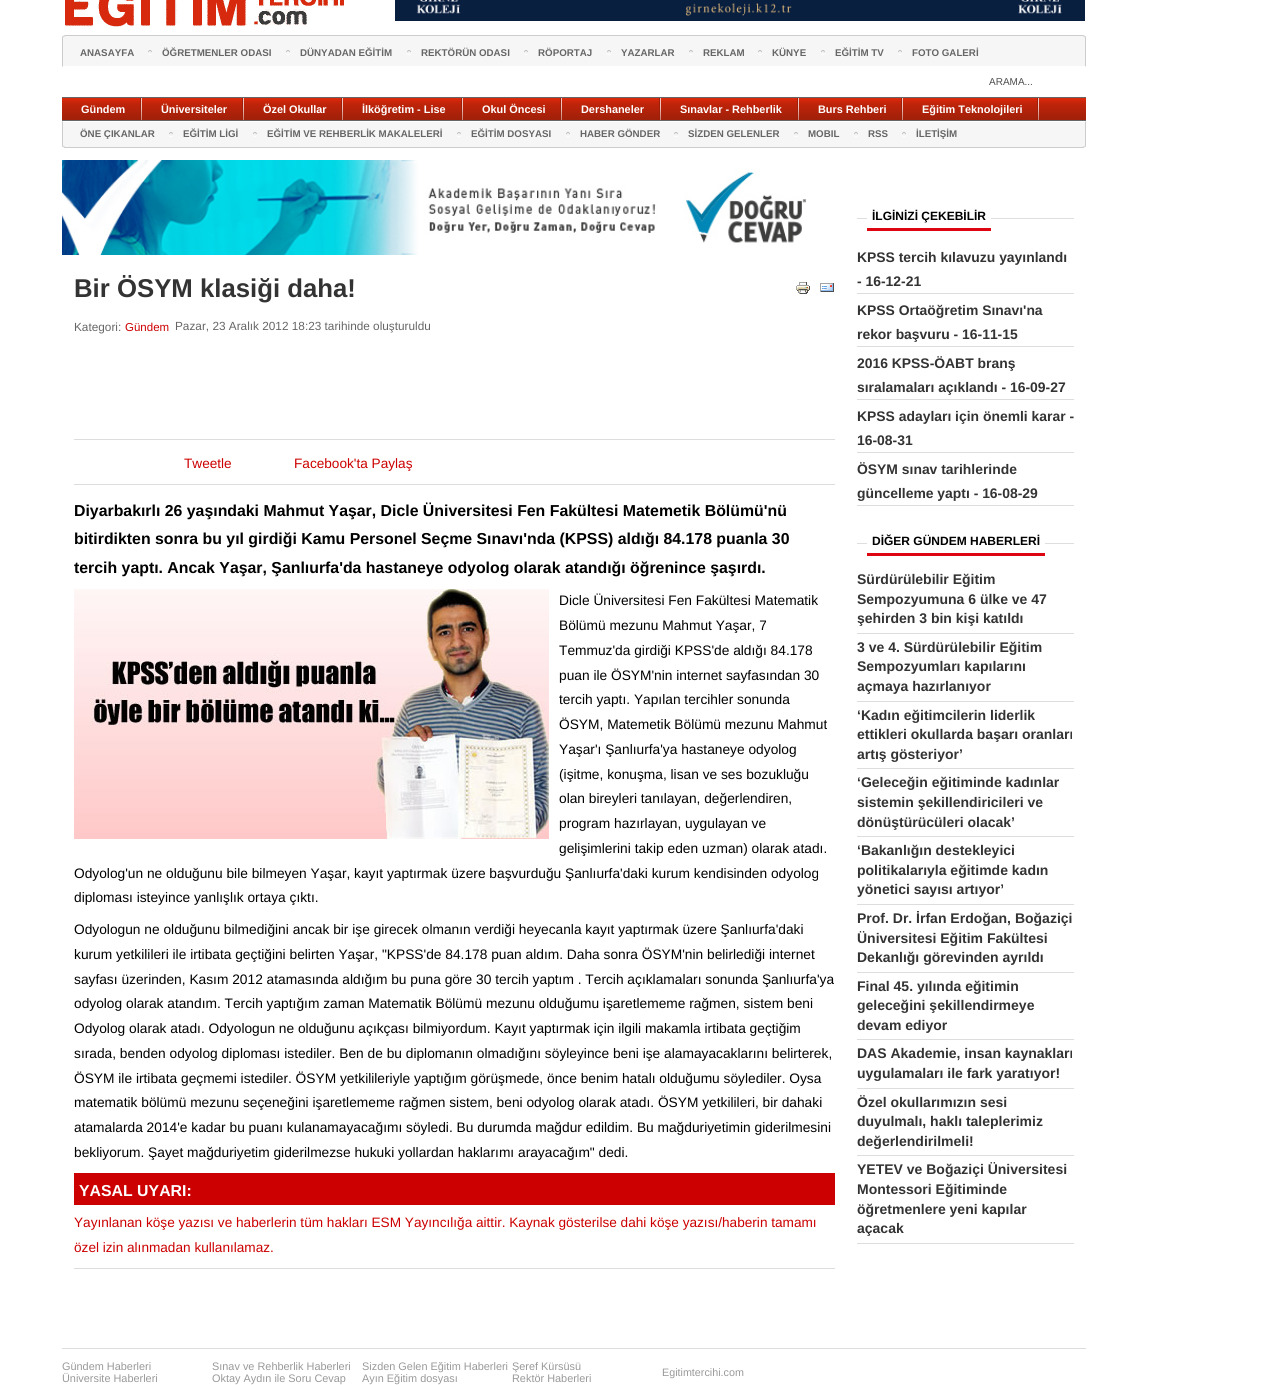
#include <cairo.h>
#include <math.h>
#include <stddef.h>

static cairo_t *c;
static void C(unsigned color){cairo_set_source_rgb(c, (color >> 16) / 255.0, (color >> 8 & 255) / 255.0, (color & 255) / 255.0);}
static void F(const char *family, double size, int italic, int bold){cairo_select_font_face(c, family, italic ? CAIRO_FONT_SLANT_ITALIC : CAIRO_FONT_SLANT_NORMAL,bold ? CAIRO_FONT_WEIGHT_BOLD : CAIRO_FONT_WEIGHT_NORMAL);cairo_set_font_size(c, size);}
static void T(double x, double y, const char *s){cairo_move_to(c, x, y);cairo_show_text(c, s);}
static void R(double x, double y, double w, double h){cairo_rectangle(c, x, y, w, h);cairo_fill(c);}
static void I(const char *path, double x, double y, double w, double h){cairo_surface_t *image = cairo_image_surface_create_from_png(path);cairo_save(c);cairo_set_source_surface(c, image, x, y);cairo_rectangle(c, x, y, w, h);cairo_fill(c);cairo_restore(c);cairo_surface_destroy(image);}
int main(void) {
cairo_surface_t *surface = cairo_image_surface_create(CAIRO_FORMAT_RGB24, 1274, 1385);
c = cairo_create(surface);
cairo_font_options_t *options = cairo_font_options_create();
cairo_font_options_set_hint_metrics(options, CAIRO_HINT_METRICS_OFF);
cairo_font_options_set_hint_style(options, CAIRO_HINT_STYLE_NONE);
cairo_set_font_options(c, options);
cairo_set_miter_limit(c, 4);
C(0xffffff);
cairo_paint(c);
I("1.png",65,0,279,27);
I("2.png",395,0,690,21);
C(0xf6f6f6);
cairo_new_path(c);
cairo_move_to(c,65,35);
cairo_line_to(c,1083,35);
cairo_curve_to(c,1084.5,35,1086,36.5,1086,38);
cairo_line_to(c,1086,67);
cairo_line_to(c,62,67);
cairo_line_to(c,62,38);
cairo_curve_to(c,62,36.5,63.5,35,65,35);
cairo_close_path(c);
cairo_fill(c);
C(0xcccccc);
cairo_new_path(c);
cairo_move_to(c,65,35);
cairo_line_to(c,63,36);
cairo_line_to(c,64,37);
cairo_line_to(c,65,36);
cairo_line_to(c,1083,36);
cairo_line_to(c,1084,37);
cairo_line_to(c,1085,36);
cairo_line_to(c,1083,35);
cairo_close_path(c);
cairo_fill(c);
cairo_new_path(c);
cairo_move_to(c,1086,67);
cairo_line_to(c,1086,38);
cairo_curve_to(c,1086,37,1086,36,1085,36);
cairo_line_to(c,1084.5,36.5);
cairo_line_to(c,1085,38);
cairo_line_to(c,1085,66);
cairo_close_path(c);
cairo_fill(c);
C(0xffffff);
cairo_new_path(c);
cairo_move_to(c,1086,67);
cairo_line_to(c,1085,66);
cairo_line_to(c,63,66);
cairo_line_to(c,62,67);
cairo_close_path(c);
cairo_fill(c);
C(0xcccccc);
cairo_new_path(c);
cairo_move_to(c,62,67);
cairo_line_to(c,63,66);
cairo_line_to(c,63,38);
cairo_line_to(c,63.5,36.5);
cairo_line_to(c,63,36);
cairo_curve_to(c,62,36,62,37,62,38);
cairo_close_path(c);
cairo_fill(c);
F("Liberation Sans",9.75,0,1);
C(0x666666);
T(80,56,"ANASAYFA");
I("3.png",148,50,4,5);
T(162,56,"ÖĞRETMENLER ODASI");
I("3.png",286,50,4,5);
T(300,56,"DÜNYADAN EĞİTİM");
I("3.png",407,50,4,5);
T(421,56,"REKTÖRÜN ODASI");
I("3.png",524,50,4,5);
T(538,56,"RÖPORTAJ");
I("3.png",607,50,4,5);
T(621,56,"YAZARLAR");
I("3.png",689,50,4,5);
T(703,56,"REKLAM");
I("3.png",758,50,4,5);
T(772,56,"KÜNYE");
I("3.png",821,50,4,5);
T(835,56,"EĞİTİM TV");
I("3.png",898,50,4,5);
T(912,56,"FOTO GALERİ");
F("Liberation Sans",10,0,0);
C(0x4d4d4d);
T(989,85,"ARAMA...");
I("4.png",62,98,1024,22);
C(0x666666);
R(62,97,1024,1);
R(62,120,1024,1);
I("5.png",140,98,2,22);
F("Liberation Sans",10.9,0,1);
C(0xffffff);
T(81,113,"Gündem");
I("5.png",242,98,2,22);
T(161,113,"Üniversiteler");
I("5.png",341,98,2,22);
T(263,113,"Özel Okullar");
I("5.png",461,98,2,22);
T(362,113,"İlköğretim - Lise");
I("5.png",560,98,2,22);
T(482,113,"Okul Öncesi");
I("5.png",659,98,2,22);
T(581,113,"Dershaneler");
I("5.png",797,98,2,22);
T(680,113,"Sınavlar - Rehberlik");
I("5.png",901,98,2,22);
T(818,113,"Burs Rehberi");
I("5.png",1037,98,2,22);
T(922,113,"Eğitim Teknolojileri");
C(0xf6f6f6);
cairo_new_path(c);
cairo_move_to(c,62,121);
cairo_line_to(c,1086,121);
cairo_line_to(c,1086,145);
cairo_curve_to(c,1086,146.5,1084.5,148,1083,148);
cairo_line_to(c,65,148);
cairo_curve_to(c,63.5,148,62,146.5,62,145);
cairo_close_path(c);
cairo_fill(c);
C(0xffffff);
cairo_new_path(c);
cairo_move_to(c,62,121);
cairo_line_to(c,63,122);
cairo_line_to(c,1085,122);
cairo_line_to(c,1086,121);
cairo_close_path(c);
cairo_fill(c);
C(0xcccccc);
cairo_new_path(c);
cairo_move_to(c,1086,121);
cairo_line_to(c,1085,122);
cairo_line_to(c,1085,145);
cairo_curve_to(c,1085,145.5,1085,146,1084.5,146.5);
cairo_line_to(c,1085,147);
cairo_curve_to(c,1086,147,1086,146,1086,145);
cairo_close_path(c);
cairo_fill(c);
cairo_new_path(c);
cairo_move_to(c,65,148);
cairo_line_to(c,1083,148);
cairo_line_to(c,1085,147);
cairo_line_to(c,1084,146);
cairo_line_to(c,1083,147);
cairo_line_to(c,65,147);
cairo_line_to(c,64,146);
cairo_line_to(c,63,147);
cairo_close_path(c);
cairo_fill(c);
cairo_new_path(c);
cairo_move_to(c,63,122);
cairo_line_to(c,62,121);
cairo_line_to(c,62,145);
cairo_curve_to(c,62,146,62,147,63,147);
cairo_line_to(c,63.5,146.5);
cairo_line_to(c,63,145);
cairo_close_path(c);
cairo_fill(c);
F("Liberation Sans",9.75,0,1);
C(0x666666);
T(80,137,"ÖNE ÇIKANLAR");
I("3.png",169,132,4,5);
T(183,137,"EĞİTİM LİGİ");
I("3.png",253,132,4,5);
T(267,137,"EĞİTİM VE REHBERLİK MAKALELERİ");
I("3.png",457,132,4,5);
T(471,137,"EĞİTİM DOSYASI");
I("3.png",566,132,4,5);
T(580,137,"HABER GÖNDER");
I("3.png",674,132,4,5);
T(688,137,"SİZDEN GELENLER");
I("3.png",794,132,4,5);
T(808,137,"MOBIL");
I("3.png",854,132,4,5);
T(868,137,"RSS");
I("3.png",902,132,4,5);
T(916,137,"İLETİŞİM");
I("6.png",62,160,745,95);
F("Liberation Sans",25.75,0,1);
C(0x333333);
T(74,297,"Bir ÖSYM klasiği daha!");
I("7.png",796,282,14,12);
I("8.png",820,283,14,9);
F("Liberation Sans",11.8,0,0);
C(0x666666);
T(74,331,"Kategori:");
F("Liberation Sans",11.5,0,0);
C(0xcc0000);
T(125,331,"Gündem");
F("Liberation Sans",11.8,0,0);
C(0x666666);
T(175,330,"Pazar, 23 Aralık 2012 18:23 tarihinde oluşturuldu");
C(0xdddddd);
R(74,439,761,1);
F("Liberation Sans",13.62,0,0);
C(0xcc0000);
T(184,468,"Tweetle");
T(294,468,"Facebook'ta Paylaş");
C(0xdddddd);
R(74,484,761,1);
F("Liberation Sans",15.85,0,1);
C(0x000000);
T(74,516,"Diyarbakırlı 26 yaşındaki Mahmut Yaşar, Dicle Üniversitesi Fen Fakültesi Matemetik Bölümü'nü");
T(74,544,"bitirdikten sonra bu yıl girdiği Kamu Personel Seçme Sınavı'nda (KPSS) aldığı 84.178 puanla 30");
T(74,573,"tercih yaptı. Ancak Yaşar, Şanlıurfa'da hastaneye odyolog olarak atandığı öğrenince şaşırdı.");
I("9.png",74,589,475,250);
F("Liberation Sans",13.75,0,0);
T(559,605,"Dicle Üniversitesi Fen Fakültesi Matematik");
T(559,630,"Bölümü mezunu Mahmut Yaşar, 7");
T(559,655,"Temmuz'da girdiği KPSS'de aldığı 84.178");
T(559,680,"puan ile ÖSYM'nin internet sayfasından 30");
T(559,704,"tercih yaptı. Yapılan tercihler sonunda");
T(559,729,"ÖSYM, Matemetik Bölümü mezunu Mahmut");
T(559,754,"Yaşar'ı Şanlıurfa'ya hastaneye odyolog");
T(559,779,"(işitme, konuşma, lisan ve ses bozukluğu");
T(559,803,"olan bireyleri tanılayan, değerlendiren,");
T(559,828,"program hazırlayan, uygulayan ve");
T(559,853,"gelişimlerini takip eden uzman) olarak atadı.");
T(74,878,"Odyolog'un ne olduğunu bile bilmeyen Yaşar, kayıt yaptırmak üzere başvurduğu Şanlıurfa'daki kurum kendisinden odyolog");
T(74,902,"diploması isteyince yanlışlık ortaya çıktı.");
T(74,934,"Odyologun ne olduğunu bilmediğini ancak bir işe girecek olmanın verdiği heyecanla kayıt yaptırmak üzere Şanlıurfa'daki");
T(74,959,"kurum yetkilileri ile irtibata geçtiğini belirten Yaşar, \"KPSS'de 84.178 puan aldım. Daha sonra ÖSYM'nin belirlediği internet");
T(74,984,"sayfası üzerinden, Kasım 2012 atamasında aldığım bu puna göre 30 tercih yaptım . Tercih açıklamaları sonunda Şanlıurfa'ya");
T(74,1008,"odyolog olarak atandım. Tercih yaptığım zaman Matematik Bölümü mezunu olduğumu işaretlememe rağmen, sistem beni");
T(74,1033,"Odyolog olarak atadı. Odyologun ne olduğunu açıkçası bilmiyordum. Kayıt yaptırmak için ilgili makamla irtibata geçtiğim");
T(74,1058,"sırada, benden odyolog diploması istediler. Ben de bu diplomanın olmadığını söyleyince beni işe alamayacaklarını belirterek,");
T(74,1083,"ÖSYM ile irtibata geçmemi istediler. ÖSYM yetkilileriyle yaptığım görüşmede, önce benim hatalı olduğumu söylediler. Oysa");
T(74,1107,"matematik bölümü mezunu seçeneğini işaretlememe rağmen sistem, beni odyolog olarak atadı. ÖSYM yetkilileri, bir dahaki");
T(74,1132,"atamalarda 2014'e kadar bu puanı kulanamayacağımı söyledi. Bu durumda mağdur edildim. Bu mağduriyetimin giderilmesini");
T(74,1157,"bekliyorum. Şayet mağduriyetim giderilmezse hukuki yollardan haklarımı arayacağım\" dedi.");
C(0xcc0000);
R(74,1173,761,32);
F("Liberation Sans",15.85,0,1);
C(0xffffff);
T(79,1196,"YASAL UYARI:");
F("Liberation Sans",13.62,0,0);
C(0xcc0000);
T(74,1227,"Yayınlanan köşe yazısı ve haberlerin tüm hakları ESM Yayıncılığa aittir. Kaynak gösterilse dahi köşe yazısı/haberin tamamı");
T(74,1252,"özel izin alınmadan kullanılamaz.");
C(0xdddddd);
R(74,1268,761,1);
C(0xdedede);
R(857,218,217,1);
C(0xffffff);
R(867,218,124,1);
C(0xde0513);
R(867,228,124,3);
F("Liberation Sans",12,0,1);
C(0x000000);
T(872,220,"İLGİNİZİ ÇEKEBİLİR");
C(0xdddddd);
R(857,293,217,1);
F("Liberation Sans",13.9,0,1);
C(0x333333);
T(857,262,"KPSS tercih kılavuzu yayınlandı");
T(857,286,"- 16-12-21");
C(0xdddddd);
R(857,346,217,1);
C(0x333333);
T(857,315,"KPSS Ortaöğretim Sınavı'na");
T(857,339,"rekor başvuru - 16-11-15");
C(0xdddddd);
R(857,399,217,1);
C(0x333333);
T(857,368,"2016 KPSS-ÖABT branş");
T(857,392,"sıralamaları açıklandı - 16-09-27");
C(0xdddddd);
R(857,452,217,1);
C(0x333333);
T(857,421,"KPSS adayları için önemli karar -");
T(857,445,"16-08-31");
C(0xdddddd);
R(857,505,217,1);
C(0x333333);
T(857,474,"ÖSYM sınav tarihlerinde");
T(857,498,"güncelleme yaptı - 16-08-29");
C(0xdedede);
R(857,543,217,1);
C(0xffffff);
R(867,543,178,1);
C(0xde0513);
R(867,553,178,3);
F("Liberation Sans",12,0,1);
C(0x000000);
T(872,545,"DİĞER GÜNDEM HABERLERİ");
C(0xdddddd);
R(857,633,217,1);
F("Liberation Sans",14,0,1);
C(0x333333);
T(857,584,"Sürdürülebilir Eğitim");
T(857,604,"Sempozyumuna 6 ülke ve 47");
T(857,623,"şehirden 3 bin kişi katıldı");
C(0xdddddd);
R(857,701,217,1);
C(0x333333);
T(857,652,"3 ve 4. Sürdürülebilir Eğitim");
T(857,671,"Sempozyumları kapılarını");
T(857,691,"açmaya hazırlanıyor");
C(0xdddddd);
R(857,768,217,1);
C(0x333333);
T(857,720,"‘Kadın eğitimcilerin liderlik");
T(857,739,"ettikleri okullarda başarı oranları");
T(857,759,"artış gösteriyor’");
C(0xdddddd);
R(857,836,217,1);
C(0x333333);
T(857,787,"‘Geleceğin eğitiminde kadınlar");
T(857,807,"sistemin şekillendiricileri ve");
T(857,827,"dönüştürücüleri olacak’");
C(0xdddddd);
R(857,904,217,1);
C(0x333333);
T(857,855,"‘Bakanlığın destekleyici");
T(857,875,"politikalarıyla eğitimde kadın");
T(857,894,"yönetici sayısı artıyor’");
C(0xdddddd);
R(857,972,217,1);
C(0x333333);
T(857,923,"Prof. Dr. İrfan Erdoğan, Boğaziçi");
T(857,943,"Üniversitesi Eğitim Fakültesi");
T(857,962,"Dekanlığı görevinden ayrıldı");
C(0xdddddd);
R(857,1039,217,1);
C(0x333333);
T(857,991,"Final 45. yılında eğitimin");
T(857,1010,"geleceğini şekillendirmeye");
T(857,1030,"devam ediyor");
C(0xdddddd);
R(857,1088,217,1);
C(0x333333);
T(857,1058,"DAS Akademie, insan kaynakları");
T(857,1078,"uygulamaları ile fark yaratıyor!");
C(0xdddddd);
R(857,1155,217,1);
C(0x333333);
T(857,1107,"Özel okullarımızın sesi");
T(857,1126,"duyulmalı, haklı taleplerimiz");
T(857,1146,"değerlendirilmeli!");
C(0xdddddd);
R(857,1243,217,1);
C(0x333333);
T(857,1174,"YETEV ve Boğaziçi Üniversitesi");
T(857,1194,"Montessori Eğitiminde");
T(857,1214,"öğretmenlere yeni kapılar");
T(857,1233,"açacak");
C(0xdddddd);
R(62,1348,1024,1);
F("Liberation Sans",10.9,0,0);
C(0x999999);
T(62,1370,"Gündem Haberleri");
T(62,1382,"Üniversite Haberleri");
T(212,1370,"Sınav ve Rehberlik Haberleri");
T(212,1382,"Oktay Aydın ile Soru Cevap");
T(362,1370,"Sizden Gelen Eğitim Haberleri");
T(362,1382,"Ayın Eğitim dosyası");
T(512,1370,"Şeref Kürsüsü");
T(512,1382,"Rektör Haberleri");
F("Liberation Sans",10.75,0,0);
T(662,1376,"Egitimtercihi.com");
cairo_surface_write_to_png(surface, "o.png");
cairo_font_options_destroy(options);
cairo_destroy(c);
cairo_surface_destroy(surface);
return 0;
}
